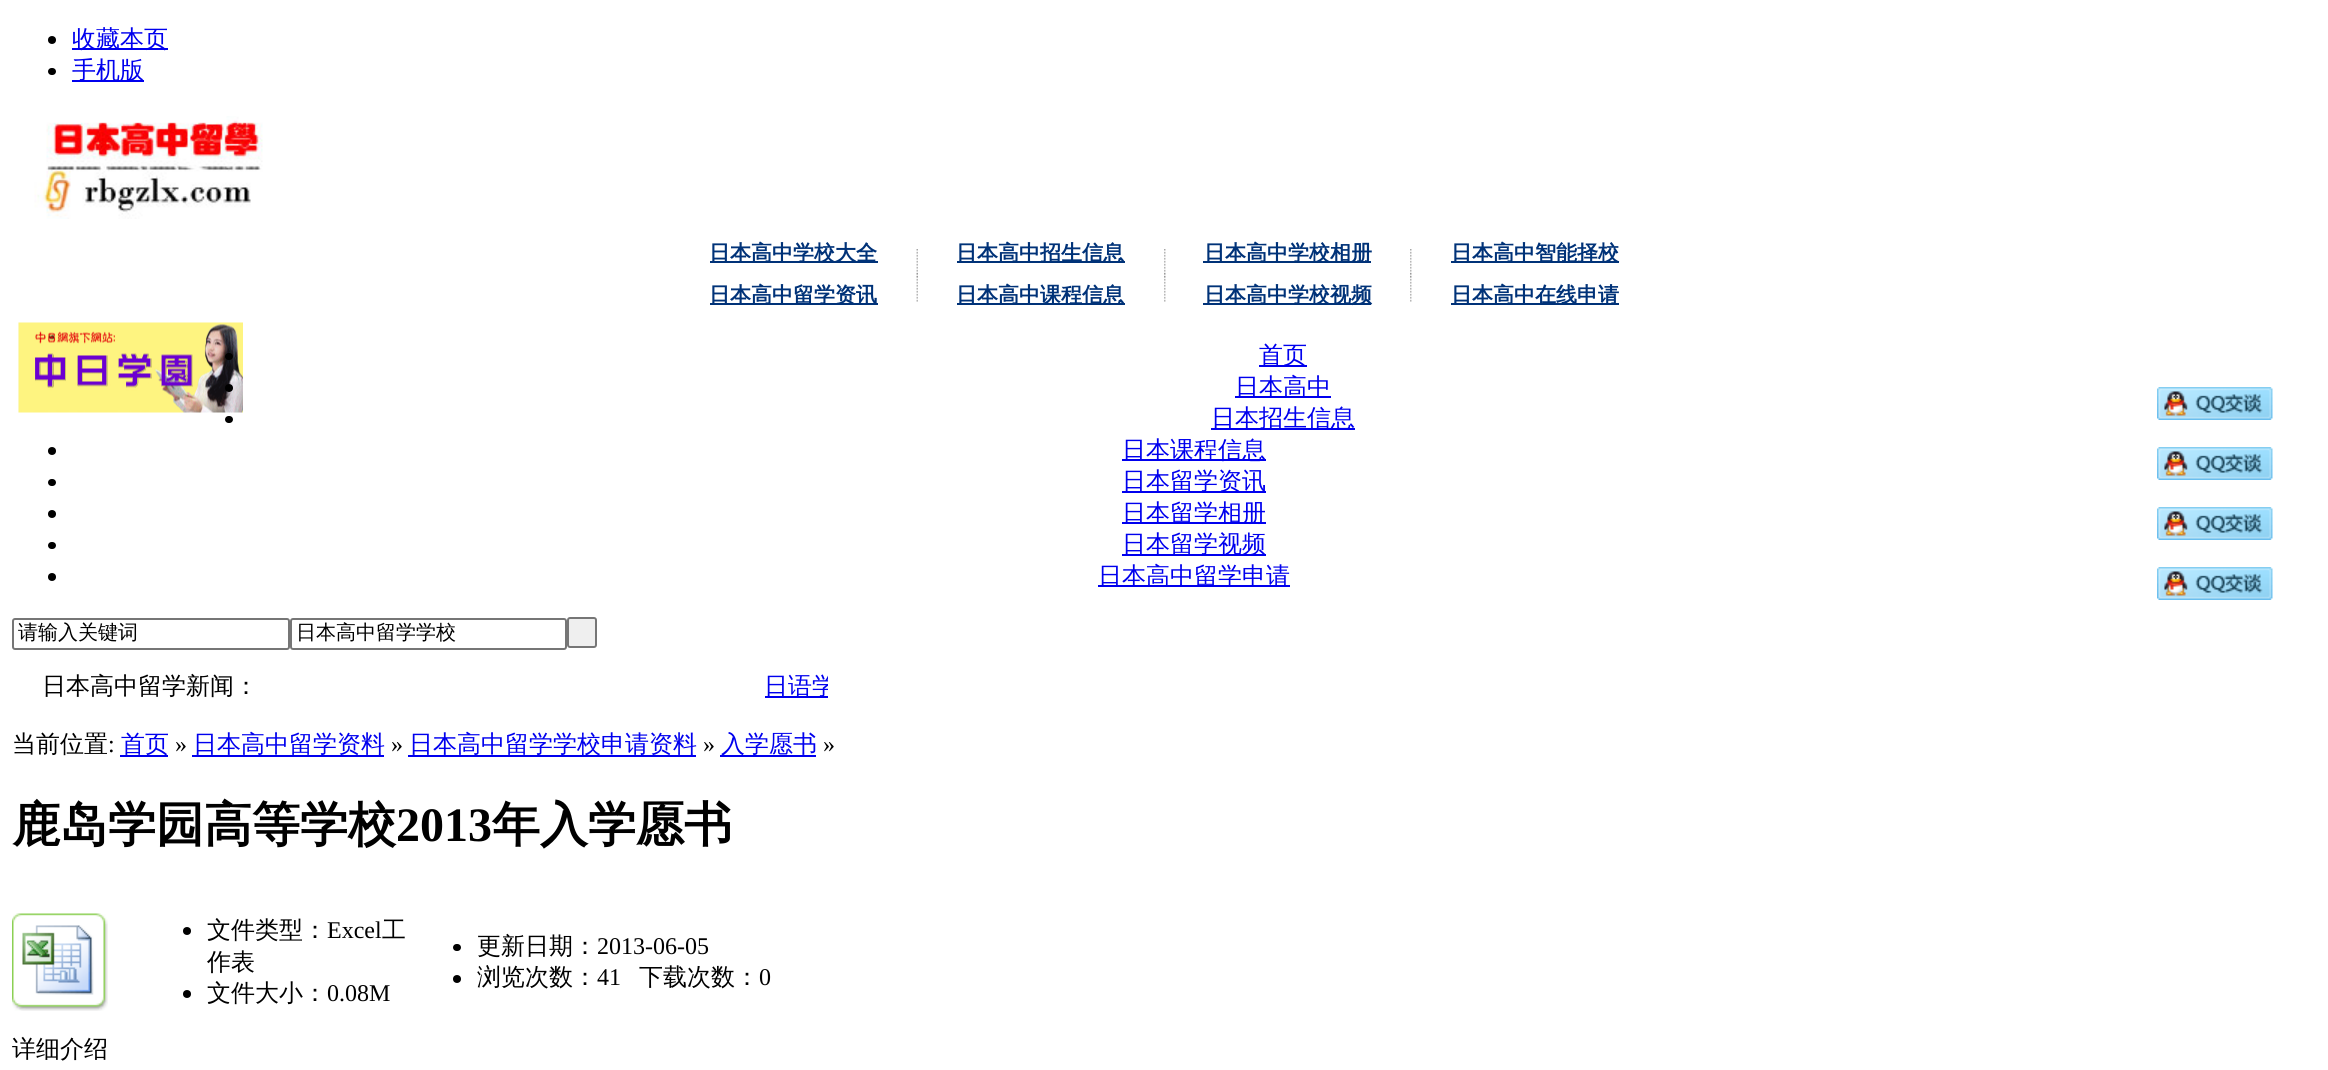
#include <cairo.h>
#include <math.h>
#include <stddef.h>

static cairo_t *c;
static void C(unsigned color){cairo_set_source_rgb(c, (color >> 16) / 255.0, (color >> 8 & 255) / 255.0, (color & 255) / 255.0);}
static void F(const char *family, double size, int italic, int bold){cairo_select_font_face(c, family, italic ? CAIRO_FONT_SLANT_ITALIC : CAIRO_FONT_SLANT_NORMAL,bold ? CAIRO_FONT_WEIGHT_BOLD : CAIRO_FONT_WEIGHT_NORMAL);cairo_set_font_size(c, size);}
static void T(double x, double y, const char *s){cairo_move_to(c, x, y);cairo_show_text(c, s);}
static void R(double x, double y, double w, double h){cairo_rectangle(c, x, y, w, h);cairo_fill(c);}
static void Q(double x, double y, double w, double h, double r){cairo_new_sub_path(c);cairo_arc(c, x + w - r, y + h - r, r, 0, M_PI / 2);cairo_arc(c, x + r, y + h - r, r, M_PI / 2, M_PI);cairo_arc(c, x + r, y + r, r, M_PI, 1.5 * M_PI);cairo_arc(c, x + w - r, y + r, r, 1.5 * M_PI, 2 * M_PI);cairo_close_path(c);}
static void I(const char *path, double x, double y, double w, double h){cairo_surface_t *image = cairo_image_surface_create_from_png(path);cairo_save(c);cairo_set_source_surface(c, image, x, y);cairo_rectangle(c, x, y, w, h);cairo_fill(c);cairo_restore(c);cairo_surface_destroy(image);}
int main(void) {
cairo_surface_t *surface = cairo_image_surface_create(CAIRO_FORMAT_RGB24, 2328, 1070);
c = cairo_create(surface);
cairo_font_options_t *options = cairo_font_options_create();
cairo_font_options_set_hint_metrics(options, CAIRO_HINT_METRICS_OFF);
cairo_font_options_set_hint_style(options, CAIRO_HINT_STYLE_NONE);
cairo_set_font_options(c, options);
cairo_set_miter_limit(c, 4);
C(0xffffff);
cairo_paint(c);
C(0x000000);
cairo_arc(c,52,40,4,0,2 * M_PI);
cairo_fill(c);
C(0x0000ee);
R(72,48,96,2);
F("WenQuanYi Zen Hei Medium",24,0,0);
T(72,47,"收藏本页");
C(0x000000);
Q(48,68,8,7,3.5);
cairo_fill(c);
C(0x0000ee);
R(72,80,72,2);
T(72,78,"手机版");
I("1.png",34,116,229,103);
C(0x003278);
R(710,261,168,2);
F("WenQuanYi Zen Hei",21,0,1);
T(709,260,"日本高中学校大全");
I("2.png",916,249,2,53);
R(957,261,168,2);
T(956,260,"日本高中招生信息");
I("3.png",1164,249,2,53);
R(1203,261,168,2);
T(1204,260,"日本高中学校相册");
I("3.png",1410,249,2,53);
R(1451,261,168,2);
T(1451,260,"日本高中智能择校");
R(710,303,168,2);
T(709,302,"日本高中留学资讯");
R(957,303,168,2);
T(956,302,"日本高中课程信息");
R(1203,303,168,2);
T(1204,302,"日本高中学校视频");
R(1451,303,168,2);
T(1451,302,"日本高中在线申请");
I("4.png",18,322,225,91);
C(0x000000);
Q(225,353,8,7,3.5);
cairo_fill(c);
C(0x0000ee);
R(1259,365,48,2);
F("WenQuanYi Zen Hei Medium",24,0,0);
T(1259,363,"首页");
C(0x000000);
cairo_new_path(c);
cairo_arc(c,229,388,4,0,2 * M_PI);
cairo_fill(c);
C(0x0000ee);
R(1235,396,96,2);
T(1235,395,"日本高中");
C(0x000000);
Q(225,416,8,7,3.5);
cairo_fill(c);
C(0x0000ee);
R(1211,428,144,2);
T(1211,426,"日本招生信息");
C(0x000000);
cairo_new_path(c);
cairo_arc(c,52,451,4,0,2 * M_PI);
cairo_fill(c);
C(0x0000ee);
R(1122,459,144,2);
T(1122,458,"日本课程信息");
C(0x000000);
Q(48,479,8,7,3.5);
cairo_fill(c);
C(0x0000ee);
R(1122,491,144,2);
T(1122,489,"日本留学资讯");
C(0x000000);
cairo_new_path(c);
cairo_arc(c,52,514,4,0,2 * M_PI);
cairo_fill(c);
C(0x0000ee);
R(1122,522,144,2);
T(1122,521,"日本留学相册");
C(0x000000);
Q(48,542,8,7,3.5);
cairo_fill(c);
C(0x0000ee);
R(1122,554,144,2);
T(1122,552,"日本留学视频");
C(0x000000);
cairo_new_path(c);
cairo_arc(c,52,577,4,0,2 * M_PI);
cairo_fill(c);
C(0x0000ee);
R(1098,585,192,2);
T(1098,584,"日本高中留学申请");
I("5.png",2157,387,116,33);
I("5.png",2157,447,116,33);
I("5.png",2157,507,116,33);
I("5.png",2157,567,116,33);
Q(13,619,276,30,2);
C(0x767676);
cairo_stroke(c);
F("WenQuanYi Zen Hei Medium",20,0,0);
C(0x000000);
T(18,639,"请输入关键词");
Q(291,619,275,30,2);
C(0x767676);
cairo_stroke(c);
C(0x000000);
T(296,639,"日本高中留学学校");
C(0xefefef);
Q(568,618,28,29,2);
cairo_fill_preserve(c);
C(0x767676);
cairo_stroke(c);
F("WenQuanYi Zen Hei Medium",24,0,0);
C(0x000000);
T(42,694,"日本高中留学新闻：");
C(0x0000ee);
R(765,696,63,2);
cairo_save(c);
cairo_rectangle(c,258,672,570,32);
cairo_clip(c);
T(764,694,"日语学");
cairo_restore(c);
C(0x000000);
T(12,752,"当前位置");
F("Liberation Serif",24,0,0);
T(108,752,":");
C(0x0000ee);
R(120,755,48,2);
F("WenQuanYi Zen Hei Medium",24,0,0);
T(121,752,"首页");
F("Liberation Serif",24,0,0);
C(0x000000);
T(175,752,"»");
C(0x0000ee);
R(192,755,192,2);
F("WenQuanYi Zen Hei Medium",24,0,0);
T(193,752,"日本高中留学资料");
F("Liberation Serif",24,0,0);
C(0x000000);
T(391,752,"»");
C(0x0000ee);
R(408,755,288,2);
F("WenQuanYi Zen Hei Medium",24,0,0);
T(409,752,"日本高中留学学校申请资料");
F("Liberation Serif",24,0,0);
C(0x000000);
T(703,752,"»");
C(0x0000ee);
R(720,755,96,2);
F("WenQuanYi Zen Hei Medium",24,0,0);
T(721,752,"入学愿书");
F("Liberation Serif",24,0,0);
C(0x000000);
T(823,752,"»");
F("WenQuanYi Zen Hei",48,0,1);
T(12,841,"鹿岛学园高等学校");
F("Liberation Serif",48,0,1);
T(396,841,"2013");
F("WenQuanYi Zen Hei",48,0,1);
T(492,841,"年入学愿书");
I("6.png",12,913,96,98);
cairo_arc(c,187,931,4,0,2 * M_PI);
cairo_fill(c);
F("WenQuanYi Zen Hei Medium",24,0,0);
T(207,938,"文件类型：");
F("Liberation Serif",24,0,0);
T(327,938,"Excel");
F("WenQuanYi Zen Hei Medium",24,0,0);
T(382,938,"工");
T(207,970,"作表");
cairo_new_path(c);
cairo_arc(c,187,994,4,0,2 * M_PI);
cairo_fill(c);
T(207,1001,"文件大小：");
F("Liberation Serif",24,0,0);
T(327,1001,"0.08M");
Q(453,944,8,7,3.5);
cairo_fill(c);
F("WenQuanYi Zen Hei Medium",24,0,0);
T(477,954,"更新日期：");
F("Liberation Serif",24,0,0);
T(597,954,"2013-06-05");
cairo_new_path(c);
cairo_arc(c,457,979,4,0,2 * M_PI);
cairo_fill(c);
F("WenQuanYi Zen Hei Medium",24,0,0);
T(477,985,"浏览次数：");
F("Liberation Serif",24,0,0);
T(597,985,"41");
F("WenQuanYi Zen Hei Medium",24,0,0);
T(639,985,"下载次数：");
F("Liberation Serif",24,0,0);
T(759,985,"0");
F("WenQuanYi Zen Hei Medium",24,0,0);
T(12,1057,"详细介绍");
cairo_surface_write_to_png(surface, "o.png");
cairo_font_options_destroy(options);
cairo_destroy(c);
cairo_surface_destroy(surface);
return 0;
}
